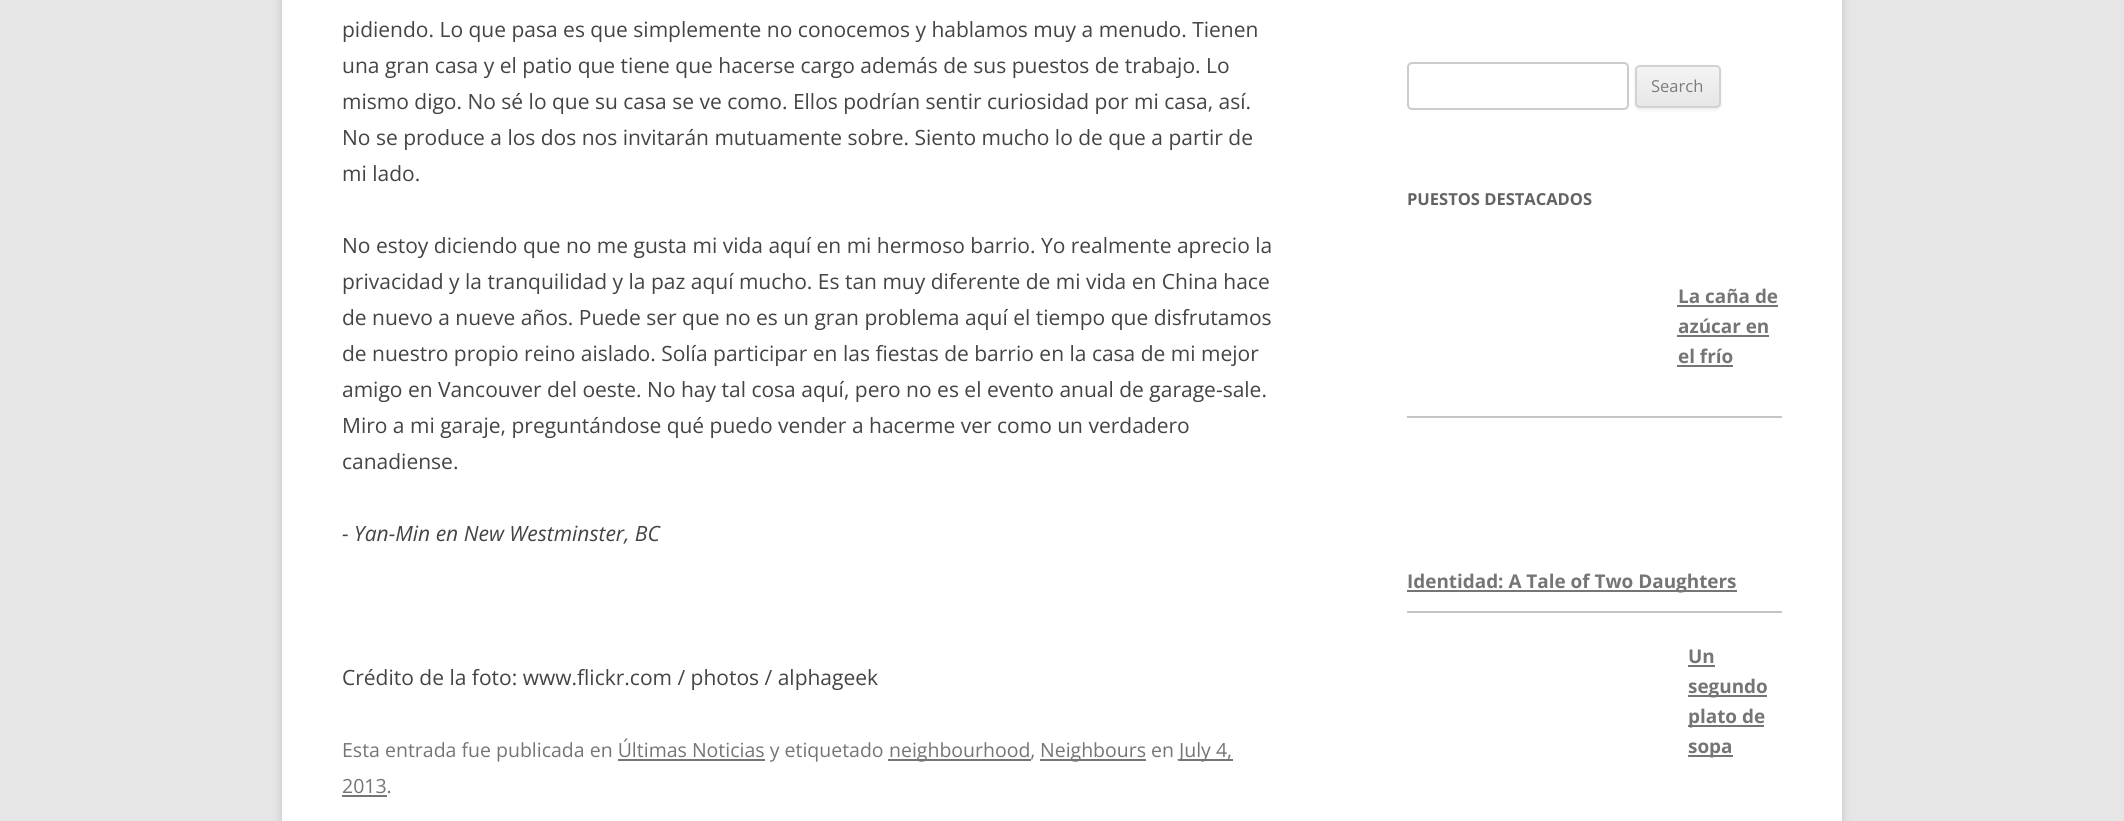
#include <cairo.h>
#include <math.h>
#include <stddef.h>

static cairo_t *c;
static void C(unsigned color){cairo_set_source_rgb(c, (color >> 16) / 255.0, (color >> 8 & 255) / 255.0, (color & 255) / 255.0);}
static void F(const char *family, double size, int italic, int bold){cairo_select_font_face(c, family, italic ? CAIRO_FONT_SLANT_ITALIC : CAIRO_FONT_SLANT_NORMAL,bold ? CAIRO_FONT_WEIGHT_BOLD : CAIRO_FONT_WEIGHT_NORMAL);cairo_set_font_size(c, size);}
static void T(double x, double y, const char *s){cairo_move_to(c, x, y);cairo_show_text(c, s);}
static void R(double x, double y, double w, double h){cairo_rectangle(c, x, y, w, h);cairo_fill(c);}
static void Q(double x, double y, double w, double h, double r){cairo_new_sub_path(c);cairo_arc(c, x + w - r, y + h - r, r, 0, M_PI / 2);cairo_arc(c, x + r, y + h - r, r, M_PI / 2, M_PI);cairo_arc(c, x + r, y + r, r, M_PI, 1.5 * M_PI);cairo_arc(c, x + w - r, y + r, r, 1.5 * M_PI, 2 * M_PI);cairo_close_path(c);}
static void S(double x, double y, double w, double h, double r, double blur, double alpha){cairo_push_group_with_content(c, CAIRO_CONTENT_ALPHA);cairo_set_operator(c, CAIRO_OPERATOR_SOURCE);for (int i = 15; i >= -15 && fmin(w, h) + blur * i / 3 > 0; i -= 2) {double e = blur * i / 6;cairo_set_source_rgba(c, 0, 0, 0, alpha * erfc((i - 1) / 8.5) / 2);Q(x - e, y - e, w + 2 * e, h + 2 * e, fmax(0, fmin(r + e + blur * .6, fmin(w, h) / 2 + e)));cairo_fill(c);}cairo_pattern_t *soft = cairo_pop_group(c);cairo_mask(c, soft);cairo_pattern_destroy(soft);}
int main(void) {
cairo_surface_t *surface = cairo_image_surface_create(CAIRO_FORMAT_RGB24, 2124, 821);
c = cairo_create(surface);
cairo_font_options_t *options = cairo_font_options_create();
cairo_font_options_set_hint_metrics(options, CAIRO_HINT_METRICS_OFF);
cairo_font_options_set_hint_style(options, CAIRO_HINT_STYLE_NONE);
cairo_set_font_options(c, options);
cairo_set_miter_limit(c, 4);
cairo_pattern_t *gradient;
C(0xe6e6e6);
cairo_paint(c);
C(0x646464);
S(282,-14,1560,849,0,4.5,.3);
C(0xffffff);
R(282,0,1560,821);
F("Open Sans",21,0,0);
C(0x444444);
T(342,37,"pidiendo. Lo que pasa es que simplemente no conocemos y hablamos muy a menudo. Tienen");
T(342,73,"una gran casa y el patio que tiene que hacerse cargo además de sus puestos de trabajo. Lo");
T(342,109,"mismo digo. No sé lo que su casa se ve como. Ellos podrían sentir curiosidad por mi casa, así.");
T(342,145,"No se produce a los dos nos invitarán mutuamente sobre. Siento mucho lo de que a partir de");
T(342,181,"mi lado.");
T(342,253,"No estoy diciendo que no me gusta mi vida aquí en mi hermoso barrio. Yo realmente aprecio la");
T(342,289,"privacidad y la tranquilidad y la paz aquí mucho. Es tan muy diferente de mi vida en China hace");
T(342,325,"de nuevo a nueve años. Puede ser que no es un gran problema aquí el tiempo que disfrutamos");
T(342,361,"de nuestro propio reino aislado. Solía participar en las fiestas de barrio en la casa de mi mejor");
T(342,397,"amigo en Vancouver del oeste. No hay tal cosa aquí, pero no es el evento anual de garage-sale.");
T(342,433,"Miro a mi garaje, preguntándose qué puedo vender a hacerme ver como un verdadero");
T(342,469,"canadiense.");
F("Open Sans",21,1,0);
T(342,541,"- Yan-Min en New Westminster, BC");
F("Open Sans",21,0,0);
T(342,685,"Crédito de la foto: www.flickr.com / photos / alphageek");
F("Open Sans",19.5,0,0);
C(0x757575);
T(342,757,"Esta entrada fue publicada en Últimas Noticias y etiquetado");
R(888,759,143,2);
T(889,757,"neighbourhood,");
R(1040,759,106,2);
T(1040,757,"Neighbours en");
R(1179,759,54,2);
T(1179,757,"July 4,");
R(618,759,147,2);
T(342,793,"2013.");
R(342,795,45,2);
Q(1408,63,220,46,4);
C(0xcccccc);
cairo_stroke(c);
C(0x404040);
S(1635,66,86,44,5,1.5,.1);
cairo_save(c);
Q(1635,65,86,43,5);
cairo_clip(c);
gradient = cairo_pattern_create_linear(1678,66,1678,107);
cairo_pattern_add_color_stop_rgba(gradient,0,0.957,0.957,0.957,1);
cairo_pattern_add_color_stop_rgba(gradient,1,0.902,0.902,0.902,1);
cairo_set_source(c,gradient);
cairo_pattern_destroy(gradient);
R(1635,66,86,41);
cairo_restore(c);
Q(1636,66,84,41,4);
C(0xd2d2d2);
cairo_stroke(c);
F("Open Sans",16.5,0,0);
C(0x7c7c7c);
T(1651,92,"Search");
F("Open Sans",16.5,0,1);
C(0x636363);
T(1407,205,"PUESTOS DESTACADOS");
C(0xc6c5c5);
R(1407,416,375,2);
F("Open Sans",18.9,0,1);
C(0x757575);
T(1678,303,"La caña de");
R(1677,305,101,2);
T(1678,333,"azúcar en");
R(1677,335,92,2);
T(1678,363,"el frío");
R(1677,365,56,2);
C(0xc6c5c5);
R(1407,611,375,2);
C(0x757575);
R(1407,590,330,2);
T(1407,588,"Identidad: A Tale of Two Daughters");
T(1688,663,"Un");
R(1688,665,27,2);
R(1688,695,79,2);
T(1688,693,"segundo");
R(1688,725,76,2);
T(1688,723,"plato de");
R(1688,755,45,2);
T(1688,753,"sopa");
cairo_surface_write_to_png(surface, "o.png");
cairo_font_options_destroy(options);
cairo_destroy(c);
cairo_surface_destroy(surface);
return 0;
}
